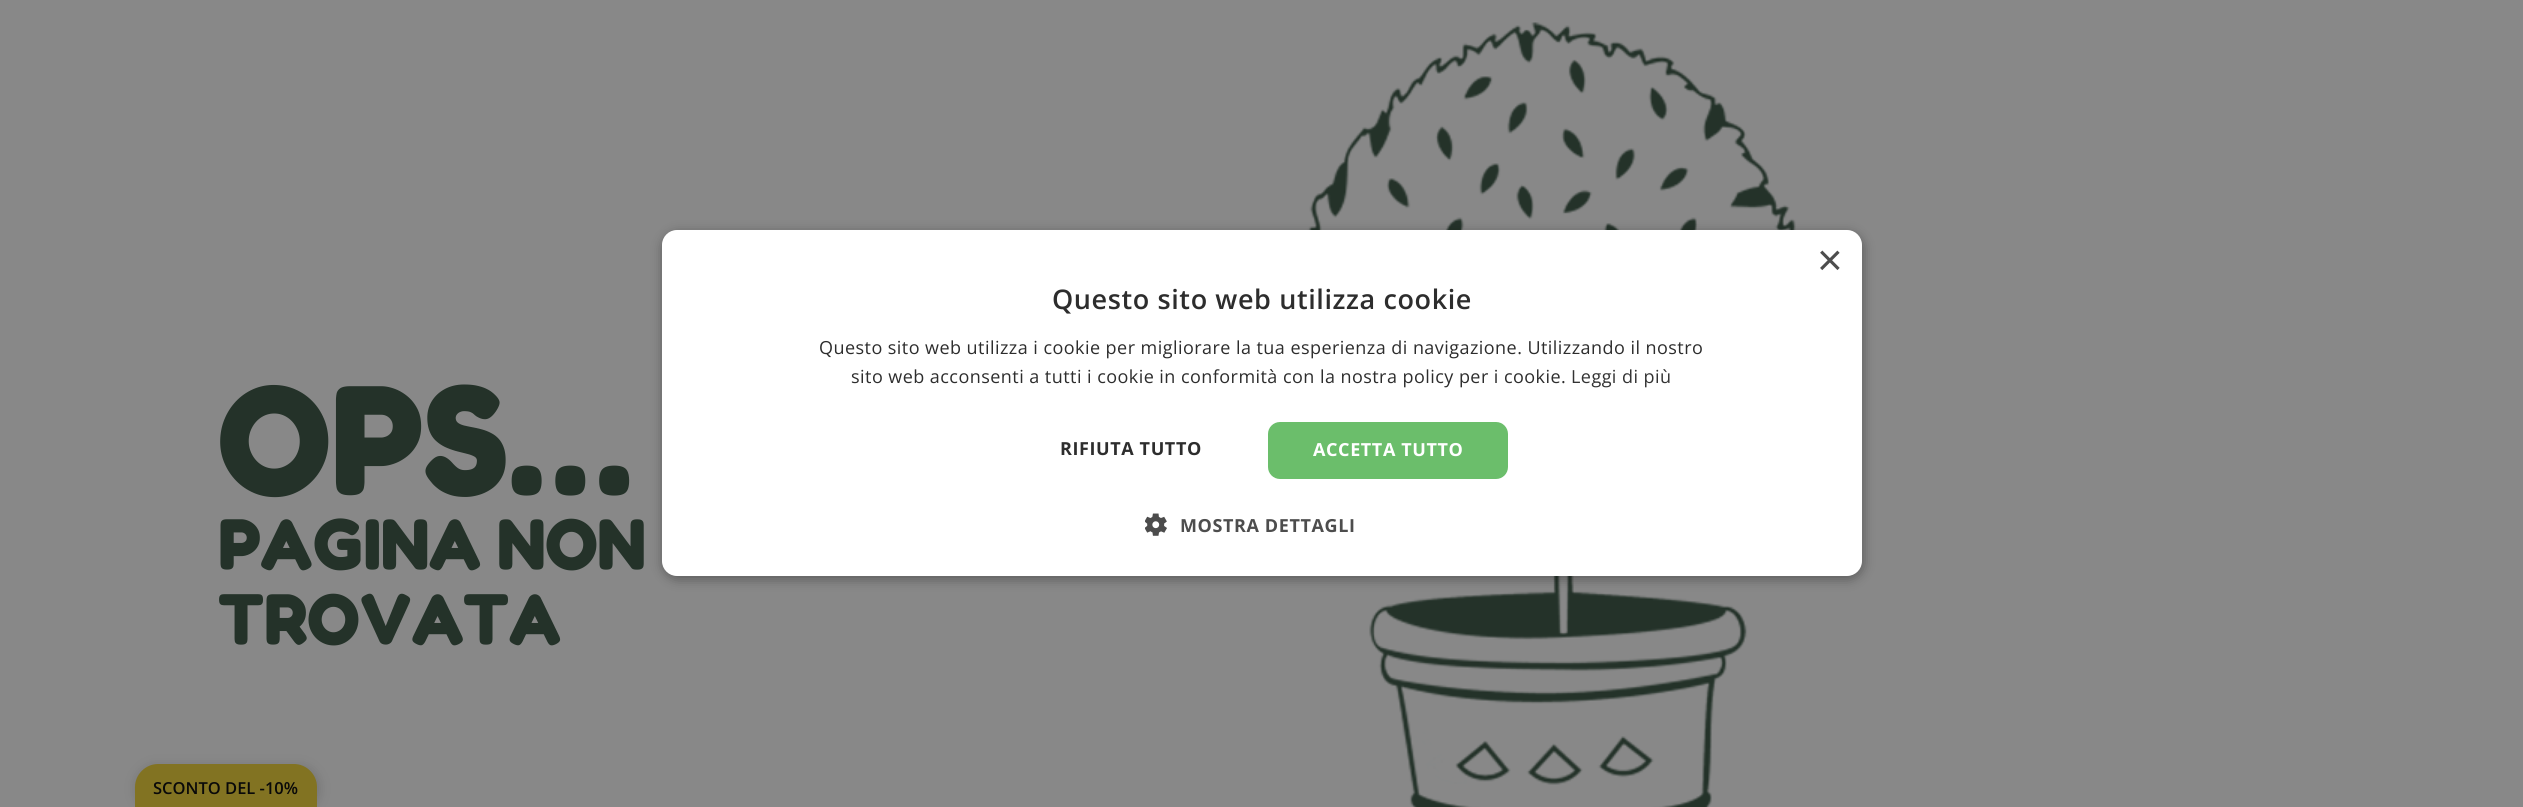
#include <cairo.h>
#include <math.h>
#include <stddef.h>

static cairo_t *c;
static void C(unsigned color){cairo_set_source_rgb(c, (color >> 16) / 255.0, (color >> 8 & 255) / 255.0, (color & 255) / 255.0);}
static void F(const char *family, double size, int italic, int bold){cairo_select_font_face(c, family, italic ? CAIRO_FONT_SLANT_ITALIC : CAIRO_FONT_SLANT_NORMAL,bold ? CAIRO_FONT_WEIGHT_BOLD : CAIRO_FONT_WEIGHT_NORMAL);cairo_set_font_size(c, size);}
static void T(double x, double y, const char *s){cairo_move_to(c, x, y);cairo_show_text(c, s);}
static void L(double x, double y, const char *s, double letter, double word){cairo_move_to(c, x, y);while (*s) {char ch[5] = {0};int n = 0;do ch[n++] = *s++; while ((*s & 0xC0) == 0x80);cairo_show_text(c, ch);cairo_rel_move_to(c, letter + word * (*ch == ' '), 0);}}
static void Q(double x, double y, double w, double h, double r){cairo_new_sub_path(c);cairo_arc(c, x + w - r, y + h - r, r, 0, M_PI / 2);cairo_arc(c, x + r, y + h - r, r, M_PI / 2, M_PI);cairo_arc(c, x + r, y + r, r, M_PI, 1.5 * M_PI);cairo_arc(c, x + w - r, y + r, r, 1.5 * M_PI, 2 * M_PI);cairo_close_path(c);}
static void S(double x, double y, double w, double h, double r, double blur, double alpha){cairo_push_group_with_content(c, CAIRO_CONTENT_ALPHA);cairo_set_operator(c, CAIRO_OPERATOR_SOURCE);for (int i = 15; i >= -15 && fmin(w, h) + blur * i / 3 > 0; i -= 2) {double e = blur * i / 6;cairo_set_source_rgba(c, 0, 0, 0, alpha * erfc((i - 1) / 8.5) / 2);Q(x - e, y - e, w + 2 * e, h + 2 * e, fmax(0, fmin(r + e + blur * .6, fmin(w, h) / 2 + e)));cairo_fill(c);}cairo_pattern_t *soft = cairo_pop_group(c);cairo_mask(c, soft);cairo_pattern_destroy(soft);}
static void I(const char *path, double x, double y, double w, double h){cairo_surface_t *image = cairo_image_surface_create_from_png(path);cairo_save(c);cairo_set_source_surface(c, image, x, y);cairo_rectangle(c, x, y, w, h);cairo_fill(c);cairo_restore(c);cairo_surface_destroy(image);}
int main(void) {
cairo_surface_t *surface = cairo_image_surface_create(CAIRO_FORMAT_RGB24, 2523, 807);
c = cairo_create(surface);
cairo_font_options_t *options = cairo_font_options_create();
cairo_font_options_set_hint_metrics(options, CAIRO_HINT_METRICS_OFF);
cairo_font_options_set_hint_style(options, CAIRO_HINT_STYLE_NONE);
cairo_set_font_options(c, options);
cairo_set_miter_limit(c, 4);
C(0x888888);
cairo_paint(c);
F("Fredoka",156,0,1);
C(0x243229);
T(218,494,"OPS…");
F("Fredoka",72,0,1);
T(218,569,"PAGINA NON");
T(218,644,"TROVATA");
I("1.png",1306,22,493,785);
C(0x090909);
S(137,767,181,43,23,6,.2);
C(0x827322);
cairo_new_path(c);
cairo_move_to(c,158,764);
cairo_line_to(c,294,764);
cairo_curve_to(c,306.5,764,317,774.5,317,787);
cairo_line_to(c,317,807);
cairo_line_to(c,135,807);
cairo_line_to(c,135,787);
cairo_curve_to(c,135,774.5,145.5,764,158,764);
cairo_close_path(c);
cairo_fill(c);
F("Open Sans SemiBold",16.5,0,0);
C(0x090909);
T(153,794,"SCONTO DEL -10%");
C(0x000000);
S(663,233,1200,346,15,6,.35);
C(0xffffff);
Q(662,230,1200,346,15);
cairo_fill(c);
F("Liberation Sans",44,0,0);
C(0x4d4d4d);
T(1817,275,"×");
F("Open Sans SemiBold",27,0,0);
C(0x2d2d2d);
L(1052,309,"Questo sito web utilizza cookie",.6,0);
F("Open Sans",18,0,0);
L(819,354,"Questo sito web utilizza i cookie per migliorare la tua esperienza di navigazione. Utilizzando il nostro",.45,0);
L(851,383,"sito web acconsenti a tutti i cookie in conformità con la nostra policy per i cookie.",.45,0);
C(0x333333);
L(1571,383,"Leggi di più",.45,0);
F("Open Sans",18,0,1);
C(0x2d2d2d);
L(1060,455,"RIFIUTA TUTTO",.6,0);
C(0x6bbe6b);
Q(1268,422,240,57,12);
cairo_fill(c);
C(0xffffff);
L(1313,456,"ACCETTA TUTTO",.6,0);
I("2.png",1145,513,22,23);
C(0x4d4d4d);
L(1180,532,"MOSTRA DETTAGLI",.6,0);
cairo_surface_write_to_png(surface, "o.png");
cairo_font_options_destroy(options);
cairo_destroy(c);
cairo_surface_destroy(surface);
return 0;
}
